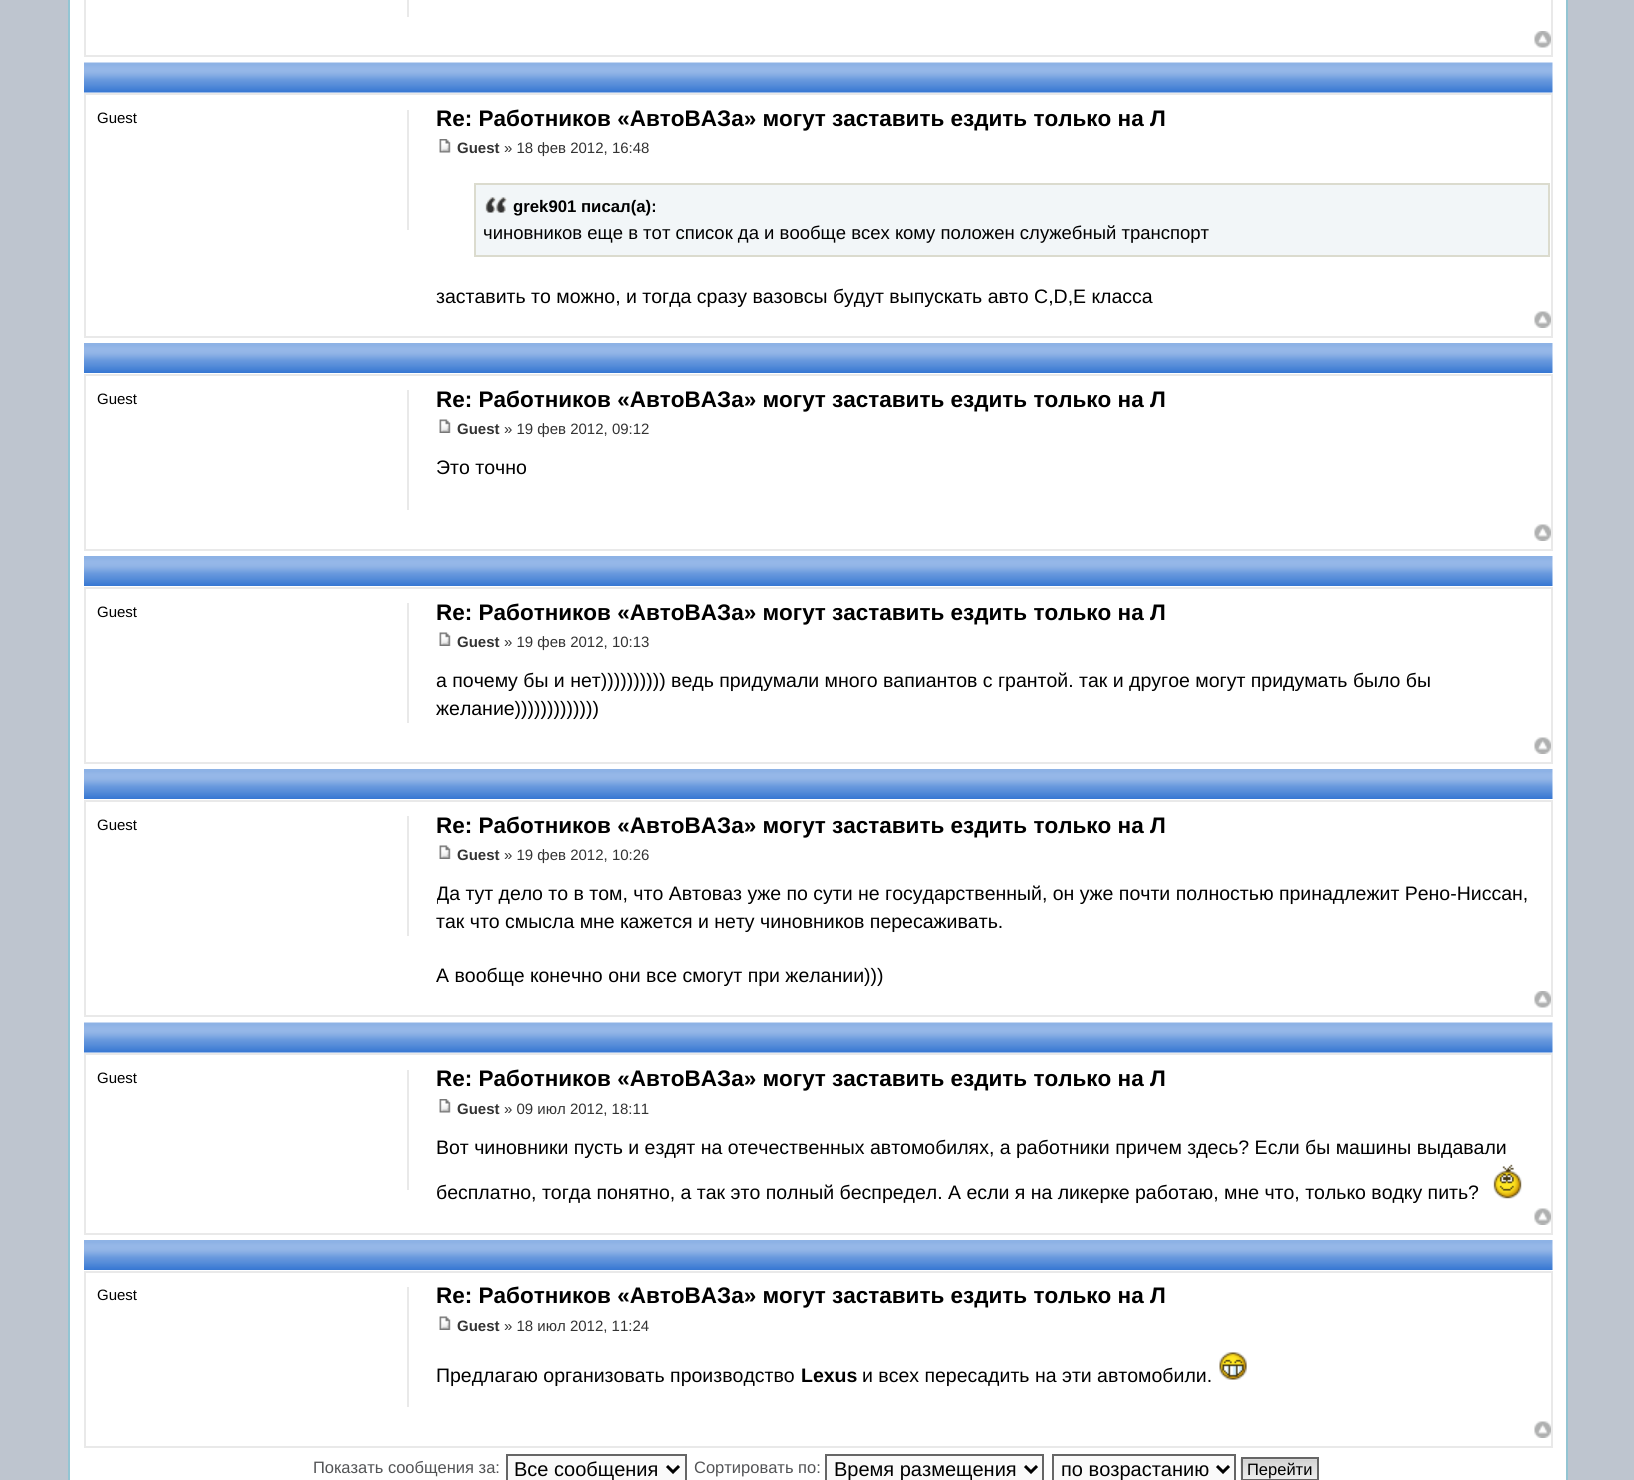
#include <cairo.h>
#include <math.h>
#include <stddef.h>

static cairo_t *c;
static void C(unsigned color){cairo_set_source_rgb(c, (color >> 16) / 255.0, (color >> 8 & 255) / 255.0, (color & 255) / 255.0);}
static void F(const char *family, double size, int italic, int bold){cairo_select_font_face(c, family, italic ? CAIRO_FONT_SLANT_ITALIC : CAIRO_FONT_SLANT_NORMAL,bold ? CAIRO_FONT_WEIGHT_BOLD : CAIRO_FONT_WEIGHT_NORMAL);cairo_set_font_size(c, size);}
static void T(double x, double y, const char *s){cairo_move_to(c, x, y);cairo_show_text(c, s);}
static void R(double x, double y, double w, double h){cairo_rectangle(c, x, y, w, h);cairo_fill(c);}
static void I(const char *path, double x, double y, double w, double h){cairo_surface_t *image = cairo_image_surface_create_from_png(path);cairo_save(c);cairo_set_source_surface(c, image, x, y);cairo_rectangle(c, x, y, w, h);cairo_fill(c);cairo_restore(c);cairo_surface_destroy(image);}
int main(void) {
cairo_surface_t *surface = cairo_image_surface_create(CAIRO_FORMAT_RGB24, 1634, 1480);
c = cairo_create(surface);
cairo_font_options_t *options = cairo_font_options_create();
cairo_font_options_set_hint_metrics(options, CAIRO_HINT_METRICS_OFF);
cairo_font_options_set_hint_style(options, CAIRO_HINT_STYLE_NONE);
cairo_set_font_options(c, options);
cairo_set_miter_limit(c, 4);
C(0xbec5cf);
cairo_paint(c);
C(0xffffff);
R(70,0,1496,1480);
C(0x93c5d3);
R(1566,0,2,1480);
R(68,0,2,1480);
cairo_rectangle(c,85,-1,1467,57);
C(0xe9e9e9);
cairo_stroke(c);
R(407,0,2,17);
I("1.png",1534,31,17,17);
I("2.png",84,62,1469,31);
cairo_rectangle(c,85,94,1467,243);
cairo_stroke(c);
R(407,110,2,120);
F("Liberation Sans",15,0,0);
C(0x000000);
T(97,123,"Guest");
F("Liberation Sans",22.5,0,1);
T(436,126,"Re: Работников «АвтоВАЗа» могут заставить ездить только на Л");
I("3.png",439,139,12,14);
F("Liberation Sans",15,0,1);
C(0x333333);
T(457,153,"Guest");
F("Liberation Sans",15,0,0);
T(504,153,"» 18 фев 2012, 16:48");
C(0xf2f6f8);
R(476,185,1072,70);
I("4.png",485,197,22,16);
cairo_rectangle(c,475,184,1074,72);
C(0xdbdbce);
cairo_stroke(c);
F("Liberation Sans",16.75,0,1);
C(0x000000);
T(513,212,"grek901 писал(а):");
F("Liberation Sans",18.5,0,0);
T(483,239,"чиновников еще в тот список да и вообще всех кому положен служебный транспорт");
F("Liberation Sans",19.5,0,0);
T(436,303,"заставить то можно, и тогда сразу вазовсы будут выпускать авто C,D,E класса");
I("5.png",1534,311,17,17);
I("6.png",84,343,1469,30);
cairo_rectangle(c,85,375,1467,175);
C(0xe9e9e9);
cairo_stroke(c);
R(407,390,2,120);
F("Liberation Sans",15,0,0);
C(0x000000);
T(97,404,"Guest");
F("Liberation Sans",22.5,0,1);
T(436,407,"Re: Работников «АвтоВАЗа» могут заставить ездить только на Л");
I("7.png",439,419,12,14);
F("Liberation Sans",15,0,1);
C(0x333333);
T(457,434,"Guest");
F("Liberation Sans",15,0,0);
T(504,434,"» 19 фев 2012, 09:12");
F("Liberation Sans",19.5,0,0);
C(0x000000);
T(436,474,"Это точно");
I("5.png",1534,524,17,17);
I("6.png",84,556,1469,30);
cairo_rectangle(c,85,588,1467,175);
C(0xe9e9e9);
cairo_stroke(c);
R(407,603,2,120);
F("Liberation Sans",15,0,0);
C(0x000000);
T(97,617,"Guest");
F("Liberation Sans",22.5,0,1);
T(436,620,"Re: Работников «АвтоВАЗа» могут заставить ездить только на Л");
I("7.png",439,632,12,14);
F("Liberation Sans",15,0,1);
C(0x333333);
T(457,647,"Guest");
F("Liberation Sans",15,0,0);
T(504,647,"» 19 фев 2012, 10:13");
F("Liberation Sans",19.5,0,0);
C(0x000000);
T(436,687,"а почему бы и нет)))))))))) ведь придумали много вапиантов с грантой. так и другое могут придумать было бы");
T(436,715,"желание)))))))))))))");
I("5.png",1534,737,17,17);
I("6.png",84,769,1469,30);
cairo_rectangle(c,85,801,1467,215);
C(0xe9e9e9);
cairo_stroke(c);
R(407,816,2,120);
F("Liberation Sans",15,0,0);
C(0x000000);
T(97,830,"Guest");
F("Liberation Sans",22.5,0,1);
T(436,833,"Re: Работников «АвтоВАЗа» могут заставить ездить только на Л");
I("7.png",439,845,12,14);
F("Liberation Sans",15,0,1);
C(0x333333);
T(457,860,"Guest");
F("Liberation Sans",15,0,0);
T(504,860,"» 19 фев 2012, 10:26");
cairo_save(c);
cairo_rectangle(c,437,881,1114,111);
cairo_clip(c);
F("Liberation Sans",19.5,0,0);
C(0x000000);
T(436,900,"Да тут дело то в том, что Автоваз уже по сути не государственный, он уже почти полностью принадлежит Рено-Ниссан,");
cairo_restore(c);
F("Liberation Sans",19.5,0,0);
C(0x000000);
T(436,928,"так что смысла мне кажется и нету чиновников пересаживать.");
T(436,982,"А вообще конечно они все смогут при желании)))");
I("1.png",1534,991,17,17);
I("2.png",84,1022,1469,31);
cairo_rectangle(c,85,1054,1467,180);
C(0xe9e9e9);
cairo_stroke(c);
R(407,1070,2,120);
F("Liberation Sans",15,0,0);
C(0x000000);
T(97,1083,"Guest");
F("Liberation Sans",22.5,0,1);
T(436,1086,"Re: Работников «АвтоВАЗа» могут заставить ездить только на Л");
I("3.png",439,1099,12,14);
F("Liberation Sans",15,0,1);
C(0x333333);
T(457,1114,"Guest");
F("Liberation Sans",15,0,0);
T(504,1114,"» 09 июл 2012, 18:11");
F("Liberation Sans",19.5,0,0);
C(0x000000);
T(436,1154,"Вот чиновники пусть и ездят на отечественных автомобилях, а работники причем здесь? Если бы машины выдавали");
T(436,1199,"бесплатно, тогда понятно, а так это полный беспредел. А если я на ликерке работаю, мне что, только водку пить?");
I("8.png",1493,1164,29,35);
I("5.png",1534,1208,17,17);
I("6.png",84,1240,1469,30);
cairo_rectangle(c,85,1272,1467,175);
C(0xe9e9e9);
cairo_stroke(c);
R(407,1287,2,120);
F("Liberation Sans",15,0,0);
C(0x000000);
T(97,1300,"Guest");
F("Liberation Sans",22.5,0,1);
T(436,1303,"Re: Работников «АвтоВАЗа» могут заставить ездить только на Л");
I("7.png",439,1316,12,14);
F("Liberation Sans",15,0,1);
C(0x333333);
T(457,1331,"Guest");
F("Liberation Sans",15,0,0);
T(504,1331,"» 18 июл 2012, 11:24");
F("Liberation Sans",19.5,0,0);
C(0x000000);
T(436,1382,"Предлагаю организовать производство");
F("Liberation Sans",19.5,0,1);
T(801,1382,"Lexus");
F("Liberation Sans",19.5,0,0);
T(862,1382,"и всех пересадить на эти автомобили.");
I("9.png",1219,1352,28,28);
I("5.png",1534,1421,17,17);
F("Liberation Sans",16.5,0,0);
C(0x535456);
T(313,1473,"Показать сообщения за:");
C(0xfafafa);
cairo_rectangle(c,507,1455,179,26);
cairo_fill_preserve(c);
C(0x666666);
cairo_stroke(c);
cairo_new_path(c);
cairo_move_to(c,667,1466);
cairo_line_to(c,673,1472);
cairo_line_to(c,679,1466);
C(0x000000);
cairo_set_line_width(c,3);
cairo_stroke(c);
F("Liberation Sans",20,0,0);
T(514,1476,"Все сообщения");
F("Liberation Sans",16.5,0,0);
C(0x535456);
T(694,1473,"Сортировать по:");
C(0xfafafa);
cairo_rectangle(c,826,1455,217,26);
cairo_fill_preserve(c);
C(0x666666);
cairo_set_line_width(c,2);
cairo_stroke(c);
cairo_new_path(c);
cairo_move_to(c,1025,1466);
cairo_line_to(c,1031,1472);
cairo_line_to(c,1037,1466);
C(0x000000);
cairo_set_line_width(c,3);
cairo_stroke(c);
F("Liberation Sans",20,0,0);
T(834,1476,"Время размещения");
C(0xfafafa);
cairo_rectangle(c,1053,1455,182,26);
cairo_fill_preserve(c);
C(0x666666);
cairo_set_line_width(c,2);
cairo_stroke(c);
cairo_new_path(c);
cairo_move_to(c,1217,1466);
cairo_line_to(c,1223,1472);
cairo_line_to(c,1229,1466);
C(0x000000);
cairo_set_line_width(c,3);
cairo_stroke(c);
T(1061,1476,"по возрастанию");
I("10.png",1240,1458,77,22);
cairo_rectangle(c,1242,1458,76,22);
C(0x666666);
cairo_set_line_width(c,2);
cairo_stroke(c);
F("Liberation Sans",16.5,0,0);
C(0x000000);
T(1247,1475,"Перейти");
cairo_surface_write_to_png(surface, "o.png");
cairo_font_options_destroy(options);
cairo_destroy(c);
cairo_surface_destroy(surface);
return 0;
}
